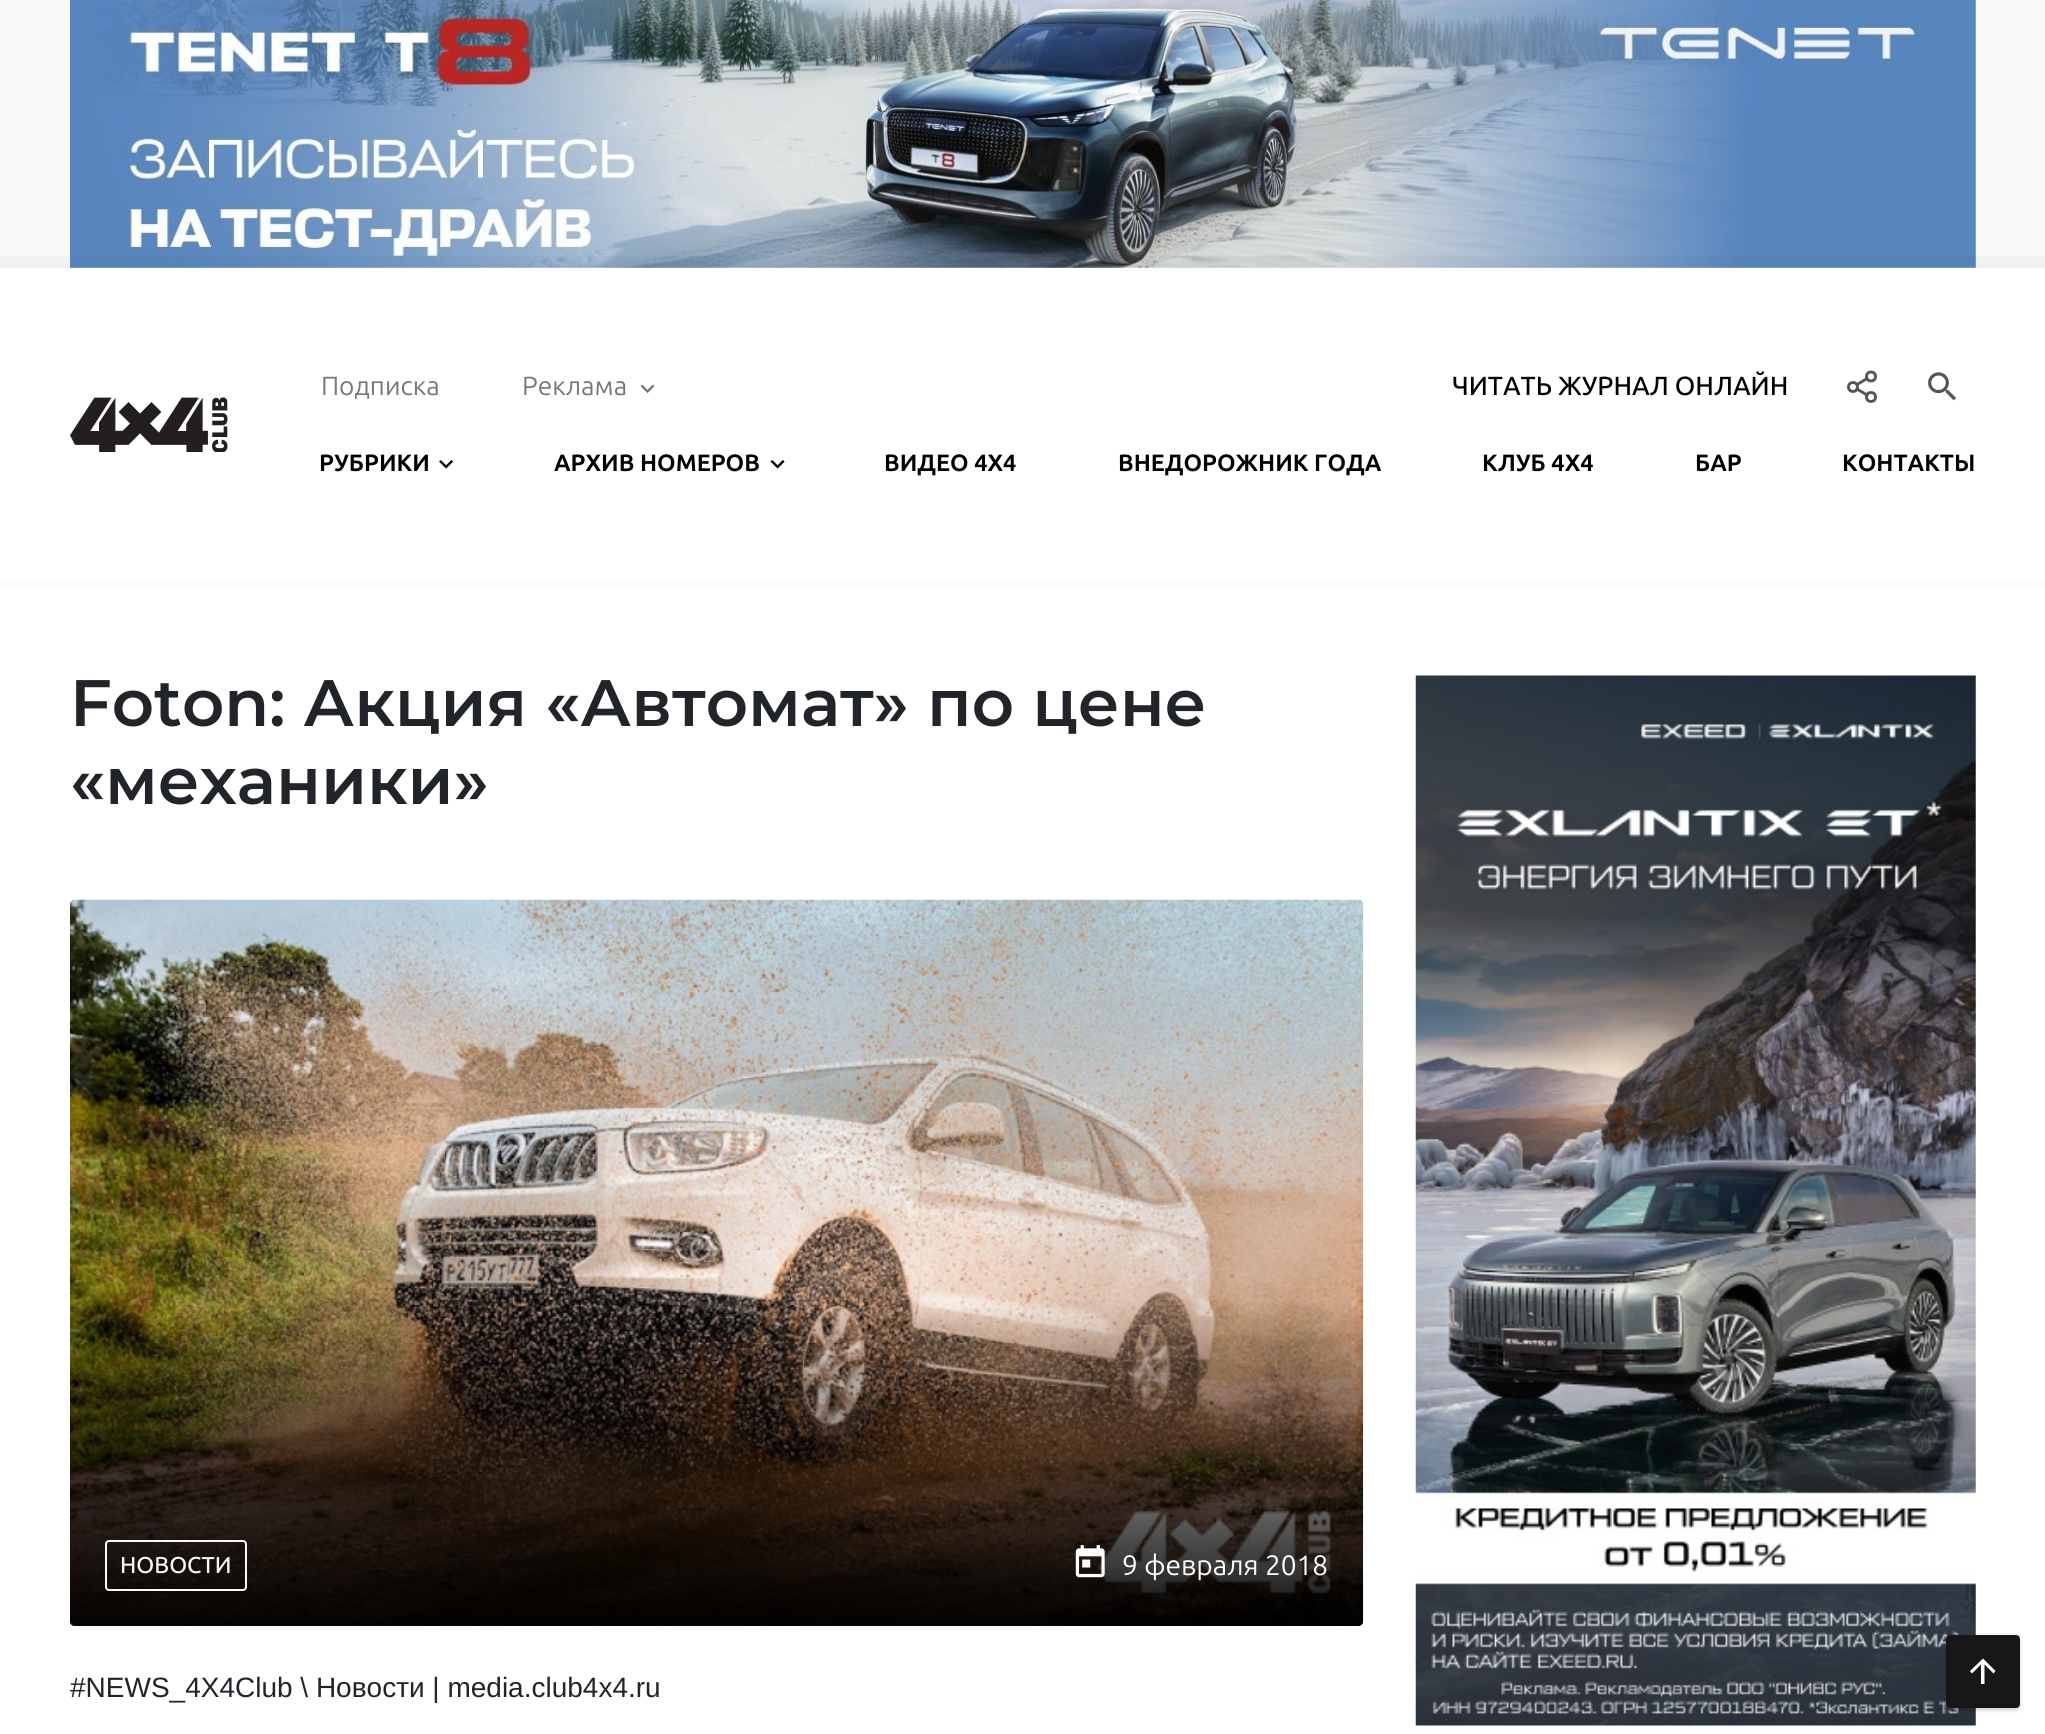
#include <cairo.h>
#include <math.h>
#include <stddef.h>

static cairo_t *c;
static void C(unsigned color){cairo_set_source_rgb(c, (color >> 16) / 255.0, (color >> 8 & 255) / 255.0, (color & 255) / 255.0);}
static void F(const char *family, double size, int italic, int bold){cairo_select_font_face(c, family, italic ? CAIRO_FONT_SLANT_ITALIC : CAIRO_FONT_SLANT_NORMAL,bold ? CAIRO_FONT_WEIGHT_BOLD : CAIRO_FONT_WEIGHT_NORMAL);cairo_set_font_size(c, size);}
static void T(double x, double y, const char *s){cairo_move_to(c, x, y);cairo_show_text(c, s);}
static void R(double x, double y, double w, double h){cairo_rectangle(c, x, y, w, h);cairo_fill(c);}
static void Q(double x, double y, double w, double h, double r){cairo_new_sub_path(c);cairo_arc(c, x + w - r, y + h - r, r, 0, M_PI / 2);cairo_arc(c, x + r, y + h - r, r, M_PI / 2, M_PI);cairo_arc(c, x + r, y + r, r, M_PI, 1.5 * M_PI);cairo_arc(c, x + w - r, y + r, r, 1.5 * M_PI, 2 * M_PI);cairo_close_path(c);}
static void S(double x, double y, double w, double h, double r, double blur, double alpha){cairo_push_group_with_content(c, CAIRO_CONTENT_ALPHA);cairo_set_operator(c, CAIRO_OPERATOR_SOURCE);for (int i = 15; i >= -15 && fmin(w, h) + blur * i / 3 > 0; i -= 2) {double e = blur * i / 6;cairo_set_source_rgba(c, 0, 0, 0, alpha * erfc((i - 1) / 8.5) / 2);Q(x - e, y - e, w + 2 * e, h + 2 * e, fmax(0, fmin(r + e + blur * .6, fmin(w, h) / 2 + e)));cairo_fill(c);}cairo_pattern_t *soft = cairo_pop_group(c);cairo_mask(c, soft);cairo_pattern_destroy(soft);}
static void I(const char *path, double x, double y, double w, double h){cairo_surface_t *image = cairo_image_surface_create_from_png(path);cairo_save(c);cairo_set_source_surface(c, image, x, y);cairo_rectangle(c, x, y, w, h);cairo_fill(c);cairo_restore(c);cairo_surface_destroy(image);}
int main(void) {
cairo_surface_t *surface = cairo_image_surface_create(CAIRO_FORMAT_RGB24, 2045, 1734);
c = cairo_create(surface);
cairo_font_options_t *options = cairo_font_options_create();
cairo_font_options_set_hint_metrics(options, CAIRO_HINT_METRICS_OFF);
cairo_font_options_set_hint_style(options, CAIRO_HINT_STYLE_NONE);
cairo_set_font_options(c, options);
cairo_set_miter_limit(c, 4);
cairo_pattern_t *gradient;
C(0xffffff);
cairo_paint(c);
C(0xf8f9fa);
R(0,0,2045,268);
I("1.png",70,0,1906,268);
gradient = cairo_pattern_create_linear(1023,268,1023,242);
cairo_pattern_add_color_stop_rgba(gradient,0,0,0,0,.04);
cairo_pattern_add_color_stop_rgba(gradient,1,0,0,0,0);
cairo_set_source(c,gradient);
cairo_pattern_destroy(gradient);
R(0,256,2045,12);
C(0xf8f9fa);
R(0,581,2045,4);
I("2.png",70,397,158,55);
F("Ubuntu",26.25,0,0);
C(0x777777);
T(321,395,"Подписка");
T(522,395,"Реклама");
I("3.png",640,384,15,9);
F("Ubuntu Medium",26.25,0,0);
C(0x000000);
T(1452,395,"ЧИТАТЬ ЖУРНАЛ ОНЛАЙН");
cairo_new_path(c);
cairo_arc(c,1853,387,4.5,0,2 * M_PI);
C(0x555555);
cairo_set_line_width(c,2.9);
cairo_stroke(c);
cairo_arc(c,1871,376.5,4.5,0,2 * M_PI);
cairo_stroke(c);
cairo_arc(c,1871,397,4.5,0,2 * M_PI);
cairo_stroke(c);
cairo_new_path(c);
cairo_move_to(c,1857,389);
cairo_line_to(c,1867,395);
cairo_move_to(c,1867,378.5);
cairo_line_to(c,1857,384.5);
cairo_set_line_cap(c,CAIRO_LINE_CAP_ROUND);
cairo_set_line_join(c,CAIRO_LINE_JOIN_ROUND);
cairo_stroke(c);
I("4.png",1928,372,28,29);
F("Ubuntu",23.6,0,1);
C(0x000000);
T(319,471,"РУБРИКИ");
I("5.png",439,460,14,9);
T(554,471,"АРХИВ НОМЕРОВ");
I("6.png",770,460,15,9);
T(884,471,"ВИДЕО 4Х4");
T(1118,471,"ВНЕДОРОЖНИК ГОДА");
T(1482,471,"КЛУБ 4Х4");
T(1695,471,"БАР");
T(1842,471,"КОНТАКТЫ");
F("Montserrat SemiBold",65.6,0,0);
C(0x212529);
T(70,726,"Foton: Акция «Автомат» по цене");
T(70,804,"«механики»");
C(0x222222);
Q(70,900,1293,726,5);
cairo_fill(c);
I("7.png",70,899,1294,727);
gradient = cairo_pattern_create_linear(717,1299,717,1626);
cairo_pattern_add_color_stop_rgba(gradient,0,0,0,0,0);
cairo_pattern_add_color_stop_rgba(gradient,1,0,0,0,.95);
cairo_set_source(c,gradient);
cairo_pattern_destroy(gradient);
cairo_new_path(c);
cairo_move_to(c,70,1299);
cairo_line_to(c,1363,1299);
cairo_line_to(c,1363,1621);
cairo_curve_to(c,1363,1624,1361,1626,1358,1626);
cairo_line_to(c,75,1626);
cairo_curve_to(c,72,1626,70,1624,70,1621);
cairo_close_path(c);
cairo_fill(c);
Q(106,1541,140,49,3);
C(0xf8f9fa);
cairo_set_line_width(c,2);
cairo_set_line_cap(c,CAIRO_LINE_CAP_BUTT);
cairo_set_line_join(c,CAIRO_LINE_JOIN_MITER);
cairo_stroke(c);
F("Ubuntu Medium",23,0,0);
T(120,1573,"НОВОСТИ");
I("8.png",1075,1545,30,33);
F("Ubuntu",28,0,0);
C(0xffffff);
T(1122,1575,"9 февраля 2018");
F("Liberation Sans",28,0,0);
C(0x212529);
T(70,1697,"#NEWS_4X4Club \\ Новости | media.club4x4.ru");
I("9.png",1415,675,561,1051);
C(0x000000);
S(1946,1636,74,74,4,2,.2);
C(0x171717);
Q(1947,1636,72,71,3);
cairo_fill_preserve(c);
cairo_stroke(c);
C(0xffffff);
cairo_new_path(c);
cairo_move_to(c,1970,1671);
cairo_line_to(c,1983,1658.5);
cairo_line_to(c,1995.5,1671);
cairo_line_to(c,1993.5,1673.5);
cairo_line_to(c,1984.5,1664.5);
cairo_line_to(c,1984.5,1684);
cairo_line_to(c,1981,1684);
cairo_line_to(c,1981,1664.5);
cairo_line_to(c,1972,1673.5);
cairo_close_path(c);
cairo_fill(c);
cairo_surface_write_to_png(surface, "o.png");
cairo_font_options_destroy(options);
cairo_destroy(c);
cairo_surface_destroy(surface);
return 0;
}
